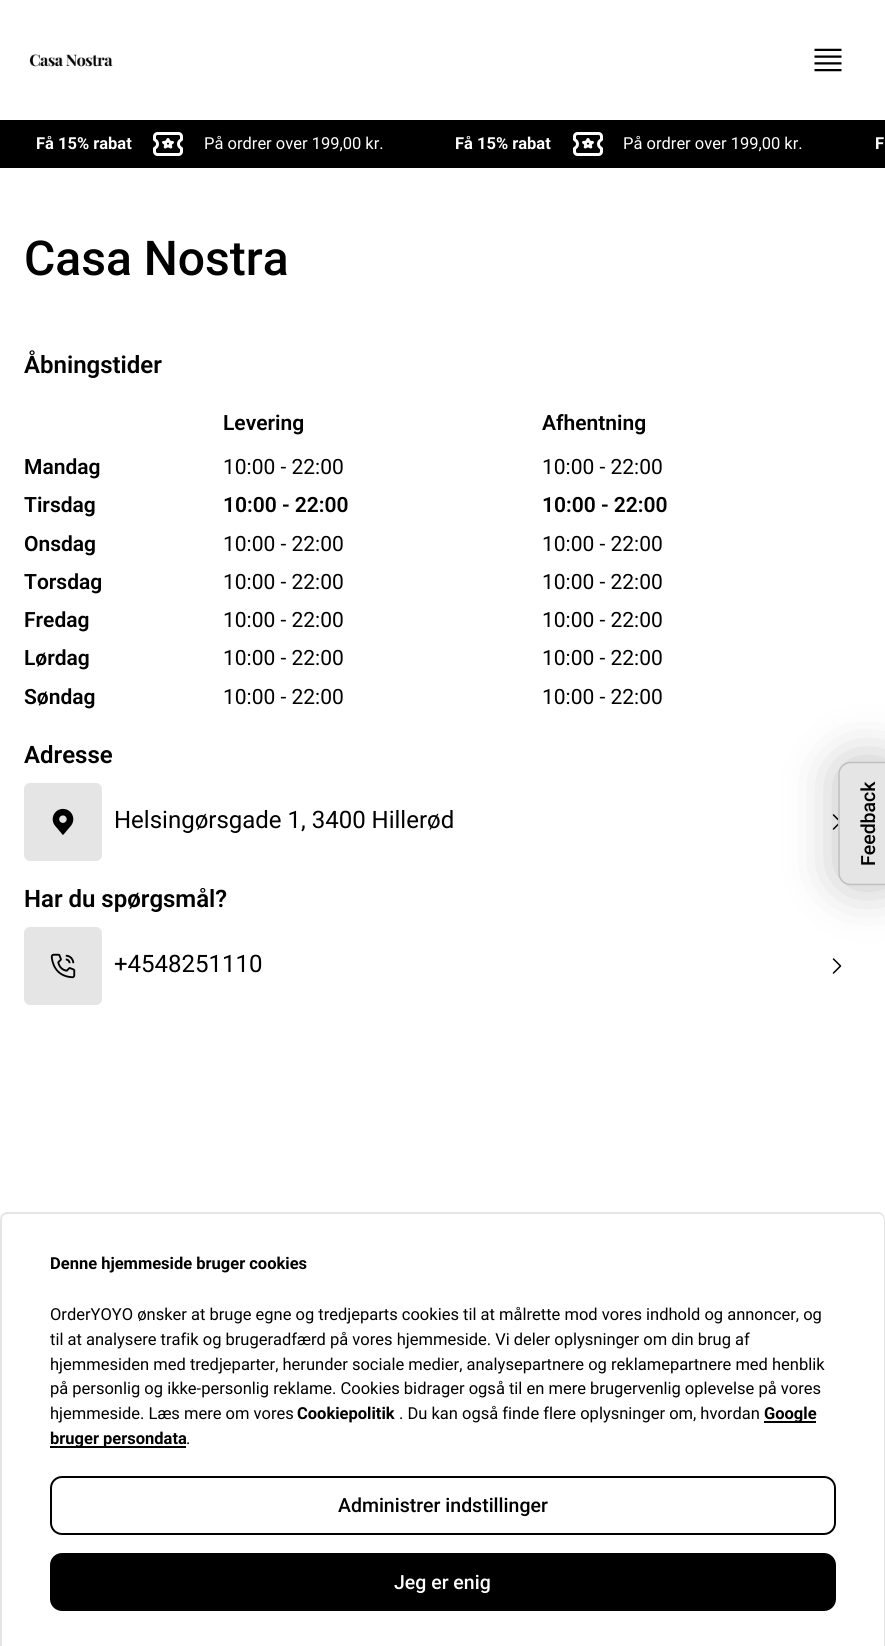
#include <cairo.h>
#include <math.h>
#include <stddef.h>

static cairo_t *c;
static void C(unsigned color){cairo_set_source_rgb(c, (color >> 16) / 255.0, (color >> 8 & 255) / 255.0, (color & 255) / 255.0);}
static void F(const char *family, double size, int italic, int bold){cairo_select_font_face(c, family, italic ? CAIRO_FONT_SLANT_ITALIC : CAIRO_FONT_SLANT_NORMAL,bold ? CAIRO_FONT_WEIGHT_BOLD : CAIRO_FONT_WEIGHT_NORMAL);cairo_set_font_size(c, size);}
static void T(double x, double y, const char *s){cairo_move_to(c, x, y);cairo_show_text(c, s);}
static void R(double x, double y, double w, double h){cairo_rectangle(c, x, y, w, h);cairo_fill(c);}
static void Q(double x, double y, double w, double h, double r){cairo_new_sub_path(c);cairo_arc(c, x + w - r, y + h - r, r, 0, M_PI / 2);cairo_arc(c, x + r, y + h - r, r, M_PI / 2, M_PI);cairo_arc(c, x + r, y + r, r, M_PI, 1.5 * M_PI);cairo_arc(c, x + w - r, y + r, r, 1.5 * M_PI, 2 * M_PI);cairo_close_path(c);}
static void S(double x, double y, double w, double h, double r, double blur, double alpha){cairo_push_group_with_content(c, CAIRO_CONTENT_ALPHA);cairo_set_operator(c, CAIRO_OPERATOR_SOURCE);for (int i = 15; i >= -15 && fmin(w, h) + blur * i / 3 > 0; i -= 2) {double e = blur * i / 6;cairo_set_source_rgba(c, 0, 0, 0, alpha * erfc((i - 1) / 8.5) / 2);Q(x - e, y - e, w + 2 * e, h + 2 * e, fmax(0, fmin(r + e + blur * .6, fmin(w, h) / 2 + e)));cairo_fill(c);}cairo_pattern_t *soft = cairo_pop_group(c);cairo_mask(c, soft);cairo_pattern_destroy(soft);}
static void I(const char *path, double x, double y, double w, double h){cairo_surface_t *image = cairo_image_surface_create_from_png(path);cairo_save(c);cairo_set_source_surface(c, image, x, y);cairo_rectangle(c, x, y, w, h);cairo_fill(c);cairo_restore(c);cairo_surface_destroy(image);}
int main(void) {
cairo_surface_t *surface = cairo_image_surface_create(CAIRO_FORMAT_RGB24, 885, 1646);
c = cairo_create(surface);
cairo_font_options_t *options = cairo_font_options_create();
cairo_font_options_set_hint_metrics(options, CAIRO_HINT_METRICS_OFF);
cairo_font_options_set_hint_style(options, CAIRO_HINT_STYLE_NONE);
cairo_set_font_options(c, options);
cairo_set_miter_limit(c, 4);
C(0xffffff);
cairo_paint(c);
I("1.png",29,54,84,13);
I("2.png",814,48,28,24);
C(0x000000);
R(0,120,885,48);
F("Roboto",16.5,0,1);
C(0xffffff);
T(36,149,"Få 15% rabat");
I("3.png",153,132,30,24);
F("Roboto",16.5,0,0);
T(204,149,"På ordrer over 199,00 kr.");
F("Roboto",16.5,0,1);
T(455,149,"Få 15% rabat");
I("3.png",573,132,30,24);
F("Roboto",16.5,0,0);
T(623,149,"På ordrer over 199,00 kr.");
F("Roboto",16.5,0,1);
T(875,149,"F");
F("Roboto Medium",48,0,0);
C(0x000000);
T(24,275,"Casa Nostra");
F("Roboto SemiBold",24,0,0);
T(24,373,"Åbningstider");
F("Roboto SemiBold",21,0,0);
T(223,430,"Levering");
T(542,430,"Afhentning");
T(24,474,"Mandag");
F("Roboto",21,0,0);
T(223,474,"10:00 - 22:00");
T(542,474,"10:00 - 22:00");
F("Roboto SemiBold",21,0,0);
T(24,512,"Tirsdag");
T(223,512,"10:00 - 22:00");
T(542,512,"10:00 - 22:00");
T(24,551,"Onsdag");
F("Roboto",21,0,0);
T(223,551,"10:00 - 22:00");
T(542,551,"10:00 - 22:00");
F("Roboto SemiBold",21,0,0);
T(24,589,"Torsdag");
F("Roboto",21,0,0);
T(223,589,"10:00 - 22:00");
T(542,589,"10:00 - 22:00");
F("Roboto SemiBold",21,0,0);
T(24,627,"Fredag");
F("Roboto",21,0,0);
T(223,627,"10:00 - 22:00");
T(542,627,"10:00 - 22:00");
F("Roboto SemiBold",21,0,0);
T(24,665,"Lørdag");
F("Roboto",21,0,0);
T(223,665,"10:00 - 22:00");
T(542,665,"10:00 - 22:00");
F("Roboto SemiBold",21,0,0);
T(24,704,"Søndag");
F("Roboto",21,0,0);
T(223,704,"10:00 - 22:00");
T(542,704,"10:00 - 22:00");
F("Roboto SemiBold",24,0,0);
T(24,763,"Adresse");
C(0xe5e5e5);
Q(24,783,78,78,6);
cairo_fill(c);
I("4.png",52,808,22,27);
F("Roboto",24,0,0);
C(0x000000);
T(114,828,"Helsingørsgade 1, 3400 Hillerød");
cairo_new_path(c);
cairo_move_to(c,833.5,815);
cairo_line_to(c,840.5,822);
cairo_line_to(c,833.5,829);
cairo_set_line_width(c,1.5);
cairo_set_line_cap(c,CAIRO_LINE_CAP_ROUND);
cairo_set_line_join(c,CAIRO_LINE_JOIN_ROUND);
cairo_stroke(c);
F("Roboto SemiBold",24,0,0);
T(24,907,"Har du spørgsmål?");
C(0xe5e5e5);
Q(24,927,78,78,6);
cairo_fill(c);
I("5.png",50,953,26,26);
F("Roboto",24,0,0);
C(0x000000);
T(114,972,"+4548251110");
cairo_new_path(c);
cairo_move_to(c,833.5,959);
cairo_line_to(c,840.5,966);
cairo_line_to(c,833.5,973);
cairo_stroke(c);
C(0x000000);
S(836,759,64,129,15,25.5,.24);
C(0xe5e5e5);
cairo_new_path(c);
cairo_move_to(c,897,885);
cairo_line_to(c,850,885);
cairo_curve_to(c,844,885,838,880,838,873);
cairo_line_to(c,838,774);
cairo_curve_to(c,838,767,844,762,850,762);
cairo_line_to(c,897,762);
cairo_close_path(c);
cairo_fill(c);
cairo_new_path(c);
cairo_move_to(c,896,884.5);
cairo_line_to(c,850.5,884.5);
cairo_curve_to(c,844.5,884.5,839,879.5,839,873);
cairo_line_to(c,839,774);
cairo_curve_to(c,839,767.5,844.5,762.5,850.5,762.5);
cairo_line_to(c,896,762.5);
cairo_close_path(c);
C(0xbfbfbf);
cairo_set_line_cap(c,CAIRO_LINE_CAP_BUTT);
cairo_set_line_join(c,CAIRO_LINE_JOIN_MITER);
cairo_stroke(c);
F("Roboto Medium",19.5,0,0);
C(0x000000);
cairo_save(c);
cairo_translate(c,875,866);
cairo_rotate(c,-90 * M_PI / 180);
T(0,0,"Feedback");
cairo_restore(c);
C(0xe5e5e5);
cairo_set_fill_rule(c,CAIRO_FILL_RULE_EVEN_ODD);
cairo_new_path(c);
cairo_move_to(c,8,1212);
cairo_line_to(c,878,1212);
cairo_curve_to(c,882,1212,885,1215,885,1220);
cairo_line_to(c,885,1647);
cairo_line_to(c,0,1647);
cairo_line_to(c,0,1220);
cairo_curve_to(c,0,1215,3,1212,8,1212);
cairo_close_path(c);
cairo_move_to(c,8,1214);
cairo_line_to(c,878,1214);
cairo_curve_to(c,881,1214,884,1216,884,1220);
cairo_line_to(c,884,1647);
cairo_line_to(c,2,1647);
cairo_line_to(c,2,1220);
cairo_curve_to(c,2,1216,4,1214,8,1214);
cairo_close_path(c);
cairo_fill(c);
F("Roboto",16.5,0,1);
C(0x000000);
T(50,1269,"Denne hjemmeside bruger cookies");
F("Roboto",16.5,0,0);
T(50,1320,"OrderYOYO ønsker at bruge egne og tredjeparts cookies til at målrette mod vores indhold og annoncer, og");
T(50,1345,"til at analysere trafik og brugeradfærd på vores hjemmeside. Vi deler oplysninger om din brug af");
T(50,1370,"hjemmesiden med tredjeparter, herunder sociale medier, analysepartnere og reklamepartnere med henblik");
T(50,1394,"på personlig og ikke-personlig reklame. Cookies bidrager også til en mere brugervenlig oplevelse på vores");
T(50,1419,"hjemmeside. Læs mere om vores");
F("Roboto",16.5,0,1);
T(297,1419,"Cookiepolitik");
F("Roboto",16.5,0,0);
T(399,1419,". Du kan også finde flere oplysninger om, hvordan");
R(764,1421,52,2);
F("Roboto",16.5,0,1);
T(764,1419,"Google");
R(50,1446,136,2);
T(50,1444,"bruger persondata");
F("Roboto",16.5,0,0);
T(186,1444,".");
Q(51,1477,784,57,11);
cairo_set_line_width(c,2);
cairo_stroke(c);
F("Roboto Medium",19.5,0,0);
T(338,1512,"Administrer indstillinger");
Q(51,1554,784,56,11);
cairo_fill_preserve(c);
cairo_stroke(c);
C(0xffffff);
T(394,1589,"Jeg er enig");
cairo_surface_write_to_png(surface, "o.png");
cairo_font_options_destroy(options);
cairo_destroy(c);
cairo_surface_destroy(surface);
return 0;
}
